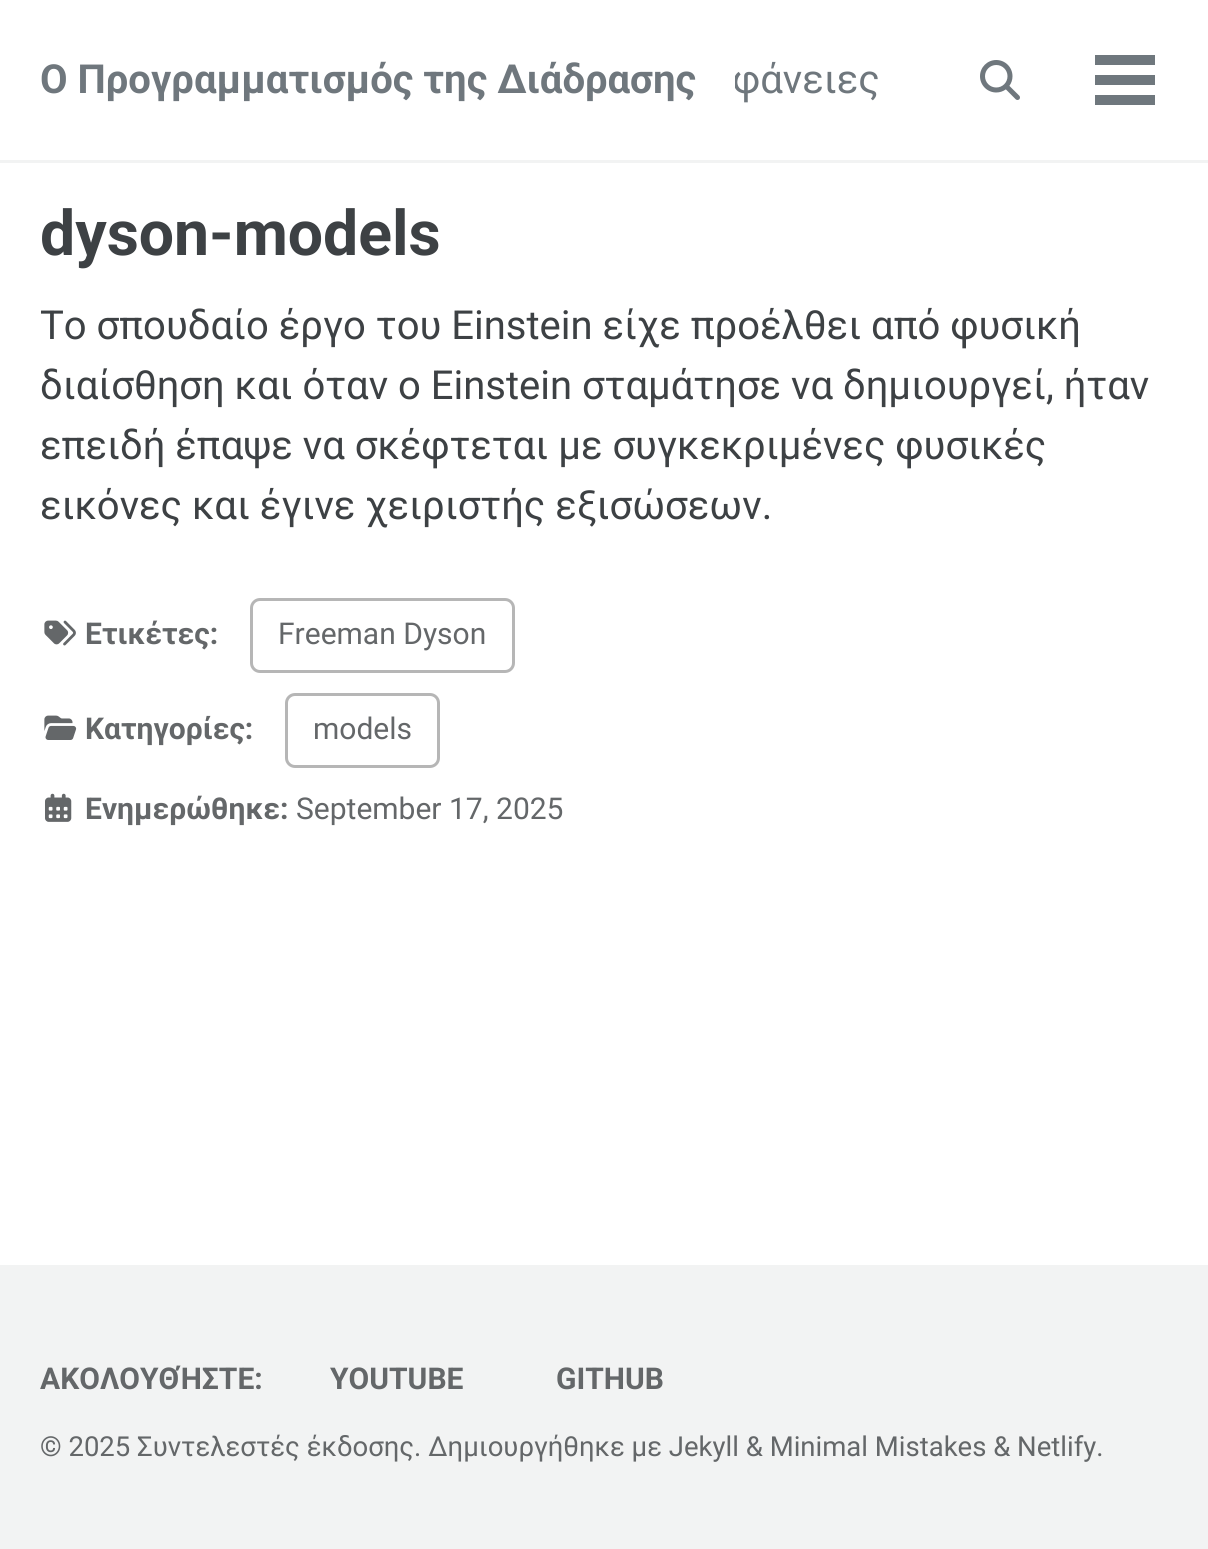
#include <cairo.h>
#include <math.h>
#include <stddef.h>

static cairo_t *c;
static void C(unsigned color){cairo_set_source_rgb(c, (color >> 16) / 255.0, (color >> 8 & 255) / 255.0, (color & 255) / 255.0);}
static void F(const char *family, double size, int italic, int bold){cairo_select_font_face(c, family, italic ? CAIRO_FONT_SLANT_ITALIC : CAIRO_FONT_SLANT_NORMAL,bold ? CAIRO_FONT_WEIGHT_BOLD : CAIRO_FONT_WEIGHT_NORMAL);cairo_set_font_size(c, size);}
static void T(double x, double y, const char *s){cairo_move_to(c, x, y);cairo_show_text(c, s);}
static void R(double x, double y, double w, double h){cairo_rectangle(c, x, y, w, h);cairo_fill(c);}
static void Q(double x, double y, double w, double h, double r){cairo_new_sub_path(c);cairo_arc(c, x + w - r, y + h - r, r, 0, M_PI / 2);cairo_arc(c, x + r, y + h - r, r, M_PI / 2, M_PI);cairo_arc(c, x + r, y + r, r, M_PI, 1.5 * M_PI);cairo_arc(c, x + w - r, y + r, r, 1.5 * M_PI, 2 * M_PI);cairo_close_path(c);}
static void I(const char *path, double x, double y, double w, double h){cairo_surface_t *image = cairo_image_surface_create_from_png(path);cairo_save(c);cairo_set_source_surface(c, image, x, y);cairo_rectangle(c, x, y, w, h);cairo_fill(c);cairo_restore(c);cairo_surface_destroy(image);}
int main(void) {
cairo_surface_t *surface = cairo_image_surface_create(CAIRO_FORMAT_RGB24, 1208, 1549);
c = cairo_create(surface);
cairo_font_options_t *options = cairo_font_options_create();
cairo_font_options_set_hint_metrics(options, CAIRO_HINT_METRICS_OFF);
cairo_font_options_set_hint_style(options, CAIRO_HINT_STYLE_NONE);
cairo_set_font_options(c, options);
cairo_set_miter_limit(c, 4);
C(0xffffff);
cairo_paint(c);
C(0xf2f3f3);
R(0,160,1208,3);
F("Roboto",40,0,1);
C(0x6f777d);
T(40,93,"Ο Προγραμματισμός της Διάδρασης");
cairo_save(c);
cairo_rectangle(c,735,50,185,60);
cairo_clip(c);
F("Roboto",40,0,0);
T(732,93,"φάνειες");
cairo_restore(c);
I("1.png",980,60,40,40);
R(1095,75,60,10);
R(1095,55,60,10);
R(1095,95,60,10);
F("Roboto",62.5,0,1);
C(0x3d4144);
T(40,255,"dyson-models");
F("Roboto",40,0,0);
T(40,339,"Το σπουδαίο έργο του Einstein είχε προέλθει από φυσική");
T(40,399,"διαίσθηση και όταν ο Einstein σταμάτησε να δημιουργεί, ήταν");
T(40,459,"επειδή έπαψε να σκέφτεται με συγκεκριμένες φυσικές");
T(40,519,"εικόνες και έγινε χειριστής εξισώσεων.");
I("2.png",44,620,32,26);
F("Roboto",30,0,1);
C(0x646769);
T(85,644,"Ετικέτες:");
Q(251.5,599.5,262,72,8.5);
C(0xb6b6b6);
cairo_set_line_width(c,3);
cairo_stroke(c);
F("Roboto",30,0,0);
C(0x646769);
T(278,644,"Freeman Dyson");
I("3.png",44,715,33,25);
F("Roboto",30,0,1);
T(85,739,"Κατηγορίες:");
Q(286.5,694.5,152,72,8.5);
C(0xb6b6b6);
cairo_stroke(c);
F("Roboto",30,0,0);
C(0x646769);
T(313,739,"models");
I("4.png",45,793,27,29);
F("Roboto",30,0,1);
T(85,819,"Ενημερώθηκε:");
F("Roboto",30,0,0);
T(296,819,"September 17, 2025");
C(0xf2f3f3);
R(0,1265,1208,284);
F("Roboto",30,0,1);
C(0x646769);
T(40,1389,"ΑΚΟΛΟΥΘΉΣΤΕ:");
T(330,1389,"YOUTUBE");
T(556,1389,"GITHUB");
F("Roboto",27.5,0,0);
T(40,1456,"© 2025 Συντελεστές έκδοσης. Δημιουργήθηκε με Jekyll & Minimal Mistakes & Netlify.");
cairo_surface_write_to_png(surface, "o.png");
cairo_font_options_destroy(options);
cairo_destroy(c);
cairo_surface_destroy(surface);
return 0;
}
